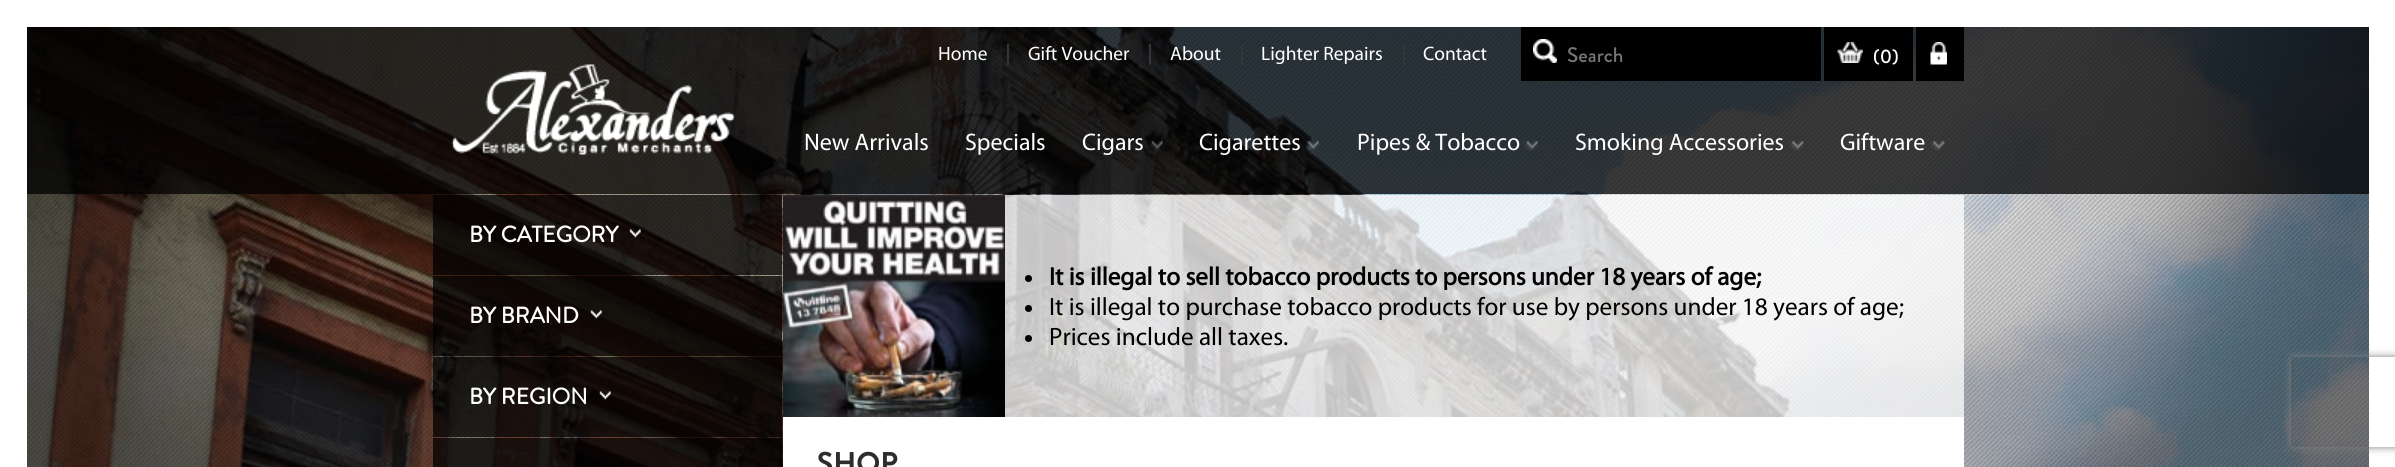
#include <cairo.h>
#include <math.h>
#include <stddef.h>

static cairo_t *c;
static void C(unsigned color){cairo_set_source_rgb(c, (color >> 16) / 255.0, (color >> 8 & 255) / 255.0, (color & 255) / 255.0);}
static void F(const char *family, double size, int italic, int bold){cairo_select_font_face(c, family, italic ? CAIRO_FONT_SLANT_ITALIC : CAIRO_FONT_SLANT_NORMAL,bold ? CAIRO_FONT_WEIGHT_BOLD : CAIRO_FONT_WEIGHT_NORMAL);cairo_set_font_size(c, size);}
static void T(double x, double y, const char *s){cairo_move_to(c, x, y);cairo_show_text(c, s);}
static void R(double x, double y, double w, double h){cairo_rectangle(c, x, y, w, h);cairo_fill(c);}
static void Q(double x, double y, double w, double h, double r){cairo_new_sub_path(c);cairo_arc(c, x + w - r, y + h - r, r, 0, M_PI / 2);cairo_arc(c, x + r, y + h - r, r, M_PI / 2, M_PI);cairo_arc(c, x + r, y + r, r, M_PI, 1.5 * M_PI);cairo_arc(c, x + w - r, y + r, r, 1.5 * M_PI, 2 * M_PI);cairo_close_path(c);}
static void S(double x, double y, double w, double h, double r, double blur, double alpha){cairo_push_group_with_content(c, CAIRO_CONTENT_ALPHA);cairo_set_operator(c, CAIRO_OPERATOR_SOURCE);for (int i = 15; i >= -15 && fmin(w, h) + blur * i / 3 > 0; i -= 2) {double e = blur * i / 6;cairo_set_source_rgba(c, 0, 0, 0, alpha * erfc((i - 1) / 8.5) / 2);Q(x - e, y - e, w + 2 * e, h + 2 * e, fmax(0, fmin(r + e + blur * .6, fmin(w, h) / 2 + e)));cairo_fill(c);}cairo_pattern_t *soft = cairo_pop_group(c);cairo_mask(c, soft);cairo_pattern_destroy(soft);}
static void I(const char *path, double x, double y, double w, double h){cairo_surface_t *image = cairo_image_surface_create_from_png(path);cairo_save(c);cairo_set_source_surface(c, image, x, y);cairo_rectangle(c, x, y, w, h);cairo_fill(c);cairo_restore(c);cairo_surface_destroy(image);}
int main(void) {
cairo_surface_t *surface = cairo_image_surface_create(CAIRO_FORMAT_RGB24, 2395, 467);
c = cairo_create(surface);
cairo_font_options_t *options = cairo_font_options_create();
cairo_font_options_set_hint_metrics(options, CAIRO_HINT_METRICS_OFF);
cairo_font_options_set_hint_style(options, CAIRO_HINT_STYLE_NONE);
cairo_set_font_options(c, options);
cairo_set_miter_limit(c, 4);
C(0xffffff);
cairo_paint(c);
I("10.png",27,27,2342,440);
I("11.png",27,27,2342,440);
cairo_set_source_rgba(c,0,0,0,0.75);
R(27,27,2342,167);
C(0x363535);
R(1007,44,2,21);
F("Myriad",19.5,0,0);
C(0xffffff);
T(938,60,"Home");
C(0x363535);
R(1149,44,2,21);
C(0xffffff);
T(1028,60,"Gift Voucher");
C(0x363535);
R(1241,44,2,21);
C(0xffffff);
T(1170,60,"About");
C(0x363535);
R(1403,44,2,21);
C(0xffffff);
T(1261,60,"Lighter Repairs");
T(1423,60,"Contact");
C(0x000000);
R(1521,27,300,54);
I("1.png",1533,39,24,24);
F("Brandon Grotesque Medium",21,0,0);
C(0x757575);
T(1567,62,"Search");
C(0x000000);
R(1824,27,89,54);
I("2.png",1837,42,26,21);
F("Brandon Grotesque Medium",19.5,0,0);
C(0xffffff);
T(1873,63,"(0)");
C(0x000000);
R(1916,27,48,54);
I("3.png",1930,42,17,23);
I("4.png",451,64,284,91);
F("Myriad",24,0,0);
C(0xffffff);
T(804,150,"New Arrivals");
T(965,150,"Specials");
T(1082,150,"Cigars");
I("5.png",1149,141,14,10);
T(1199,150,"Cigarettes");
I("6.png",1305,141,14,10);
T(1357,150,"Pipes & Tobacco");
I("7.png",1524,141,14,10);
T(1575,150,"Smoking Accessories");
I("8.png",1790,141,14,10);
T(1840,150,"Giftware");
I("9.png",1931,141,14,10);
cairo_set_source_rgba(c,0,0,0,0.75);
R(433,195,349,80);
F("Brandon Grotesque",22.5,0,1);
C(0xffffff);
T(469,242,"BY CATEGORY");
I("12.png",629,229,12,9);
cairo_set_source_rgba(c,0,0,0,0.75);
R(433,276,349,80);
C(0xffffff);
T(469,323,"BY BRAND");
I("13.png",590,310,12,9);
cairo_set_source_rgba(c,0,0,0,0.75);
R(433,357,349,80);
C(0xffffff);
T(469,404,"BY REGION");
I("14.png",599,391,12,9);
cairo_set_source_rgba(c,0,0,0,0.75);
R(433,438,349,29);
cairo_set_source_rgba(c,1,1,1,0.75);
R(1005,195,959,222);
I("15.png",783,195,222,222);
C(0x000000);
cairo_arc(c,1028.5,278.5,3.5,0,2 * M_PI);
cairo_fill(c);
F("Myriad",25.2,0,1);
T(1049,285,"It is illegal to sell tobacco products to persons under 18 years of age;");
cairo_new_path(c);
cairo_arc(c,1028.5,308.5,3.5,0,2 * M_PI);
cairo_fill(c);
F("Myriad",25.2,0,0);
T(1049,315,"It is illegal to purchase tobacco products for use by persons under 18 years of age;");
cairo_new_path(c);
cairo_arc(c,1028.5,338.5,3.5,0,2 * M_PI);
cairo_fill(c);
T(1049,345,"Prices include all taxes.");
C(0xffffff);
R(783,417,1181,50);
F("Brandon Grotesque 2",30,0,1);
C(0x2d2d2d);
T(817,473,"SHOP");
cairo_save(c);
cairo_set_fill_rule(c,CAIRO_FILL_RULE_EVEN_ODD);
cairo_new_path(c);
cairo_move_to(c,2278,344);
cairo_line_to(c,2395,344);
cairo_line_to(c,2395,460);
cairo_line_to(c,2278,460);
cairo_close_path(c);
cairo_move_to(c,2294,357);
cairo_line_to(c,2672,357);
cairo_curve_to(c,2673.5,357,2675,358.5,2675,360);
cairo_line_to(c,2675,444);
cairo_curve_to(c,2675,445.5,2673.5,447,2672,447);
cairo_line_to(c,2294,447);
cairo_curve_to(c,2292.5,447,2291,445.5,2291,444);
cairo_line_to(c,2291,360);
cairo_curve_to(c,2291,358.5,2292.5,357,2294,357);
cairo_close_path(c);
cairo_clip(c);
C(0x808080);
S(2291,357,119,90,3,4,1);
cairo_restore(c);
cairo_surface_write_to_png(surface, "o.png");
cairo_font_options_destroy(options);
cairo_destroy(c);
cairo_surface_destroy(surface);
return 0;
}
